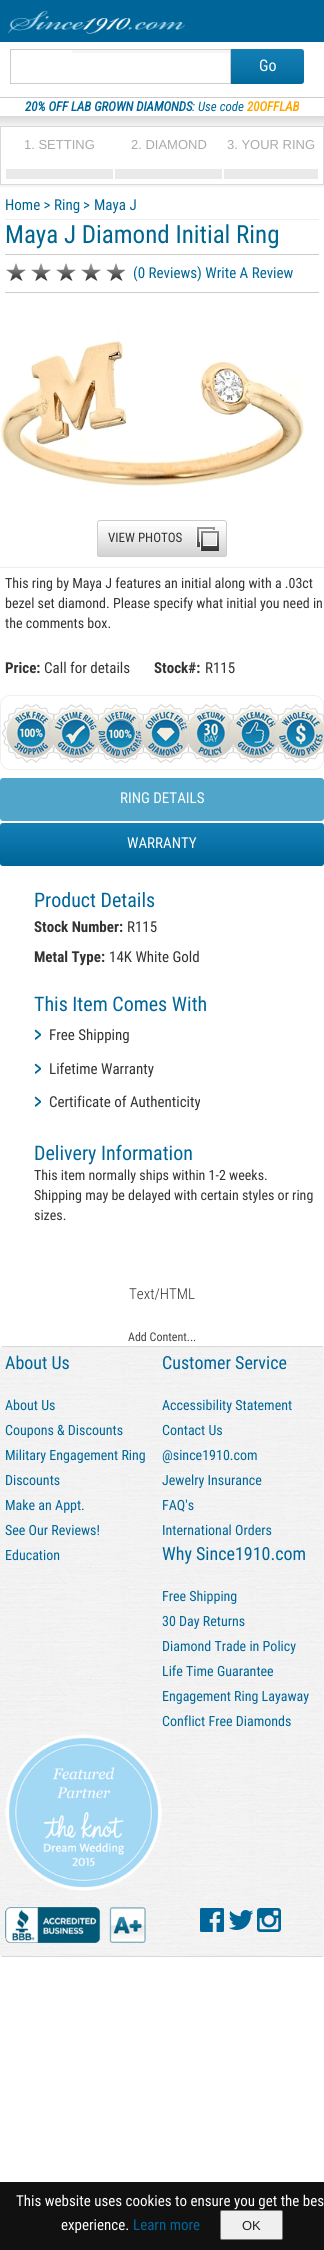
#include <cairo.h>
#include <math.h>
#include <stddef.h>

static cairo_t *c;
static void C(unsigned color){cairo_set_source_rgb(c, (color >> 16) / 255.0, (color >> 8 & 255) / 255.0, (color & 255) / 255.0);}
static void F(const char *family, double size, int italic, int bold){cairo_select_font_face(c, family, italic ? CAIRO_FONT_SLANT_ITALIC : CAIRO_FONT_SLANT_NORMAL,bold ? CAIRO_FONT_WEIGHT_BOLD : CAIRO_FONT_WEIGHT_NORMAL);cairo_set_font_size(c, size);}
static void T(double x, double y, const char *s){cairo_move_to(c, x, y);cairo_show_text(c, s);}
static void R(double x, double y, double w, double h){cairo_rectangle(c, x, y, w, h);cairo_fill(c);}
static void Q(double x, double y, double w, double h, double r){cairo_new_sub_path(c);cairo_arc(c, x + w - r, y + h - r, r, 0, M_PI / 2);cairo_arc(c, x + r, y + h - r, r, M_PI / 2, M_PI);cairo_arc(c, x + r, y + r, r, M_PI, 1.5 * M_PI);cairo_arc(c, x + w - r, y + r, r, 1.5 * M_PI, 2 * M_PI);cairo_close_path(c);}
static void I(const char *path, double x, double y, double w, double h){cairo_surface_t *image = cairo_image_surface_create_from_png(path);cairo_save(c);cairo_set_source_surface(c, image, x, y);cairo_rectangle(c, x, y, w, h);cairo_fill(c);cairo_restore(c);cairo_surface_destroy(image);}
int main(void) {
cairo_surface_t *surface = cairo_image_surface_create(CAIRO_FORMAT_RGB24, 324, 2250);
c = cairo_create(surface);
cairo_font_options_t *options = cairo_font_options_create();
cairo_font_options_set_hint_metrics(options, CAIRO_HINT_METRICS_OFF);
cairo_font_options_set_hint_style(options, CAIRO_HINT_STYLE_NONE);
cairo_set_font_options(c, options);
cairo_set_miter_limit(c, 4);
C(0xffffff);
cairo_paint(c);
C(0x006699);
R(0,0,324,42);
I("1.png",8,10,177,24);
cairo_rectangle(c,10.5,49.5,220,34);
C(0xcccccc);
cairo_set_line_width(c,1);
cairo_stroke(c);
C(0xf6f6f6);
R(72,50,158,3);
I("2.png",231,49,73,35);
F("Roboto Condensed",16,0,0);
C(0xffffff);
T(259,71,"Go");
C(0xcccccc);
R(0,97,324,1);
F("Roboto Condensed",13,1,1);
C(0x006699);
T(25,111,"20% OFF LAB GROWN DIAMONDS");
F("Roboto Condensed",13,1,0);
T(192,111,": Use code");
F("Roboto Condensed",13,1,1);
C(0xffa500);
T(247,111,"20OFFLAB");
I("3.png",0,116,324,10);
C(0xf4f4f4);
R(0,185,324,2);
cairo_rectangle(c,.5,126.5,323,58);
C(0xd9d9d9);
cairo_stroke(c);
C(0xeaeaea);
R(6,169,107,10);
F("Liberation Sans",13,0,0);
C(0xaaaaaa);
T(24,149,"1. SETTING");
C(0xeaeaea);
R(115,169,107,10);
C(0xaaaaaa);
T(131,149,"2. DIAMOND");
C(0xeaeaea);
R(224,169,94,10);
C(0xaaaaaa);
T(227,149,"3. YOUR RING");
C(0xeeeeee);
R(5,219,314,1);
F("Roboto Condensed",15,0,0);
C(0x00658f);
T(5,210,"Home >");
C(0x006699);
T(54,210,"Ring");
C(0x00658f);
T(83,210,">");
C(0x006699);
T(94,210,"Maya J");
F("Roboto Condensed",25,0,0);
C(0x00658f);
T(5,243,"Maya J Diamond Initial Ring");
C(0xcccccc);
R(5,254,314,1);
R(5,292,314,1);
I("4.png",6,263,119,18);
F("Roboto Condensed",15,0,0);
C(0x006699);
T(133,278,"(0 Reviews) Write A Review");
C(0xeeeeee);
R(0,567,324,1);
I("5.png",0,328,304,158);
I("6.png",97,526,130,31);
Q(97.5,520.5,129,36,2.5);
C(0xcccccc);
cairo_stroke(c);
F("Roboto Condensed",13,0,0);
C(0x333333);
T(108,542,"VIEW PHOTOS");
I("7.png",196,526,23,25);
F("Roboto Condensed",14,0,0);
T(5,588,"This ring by Maya J features an initial along with a .03ct");
T(5,608,"bezel set diamond. Please specify what initial you need in");
T(5,628,"the comments box.");
F("Roboto Condensed",15,0,1);
T(5,673,"Price:");
F("Roboto Condensed",15,0,0);
T(44,673,"Call for details");
F("Roboto Condensed",15,0,1);
T(154,673,"Stock#:");
F("Roboto Condensed",15,0,0);
T(205,673,"R115");
Q(.5,695.5,323,74,9.5);
C(0xf0f0f0);
cairo_stroke(c);
I("8.png",2,704,53,59);
I("9.png",46,704,54,59);
I("10.png",91,704,54,59);
I("11.png",136,704,54,59);
I("12.png",181,704,54,59);
I("13.png",226,704,54,59);
I("14.png",271,704,53,59);
C(0x4fa6ca);
Q(0,778,324,43,3);
cairo_fill(c);
C(0xffffff);
T(120,803,"RING DETAILS");
I("15.png",0,823,324,43);
T(127,848,"WARRANTY");
F("Roboto Condensed",20,0,0);
C(0x006699);
T(34,907,"Product Details");
F("Roboto Condensed",15,0,1);
C(0x333333);
T(34,932,"Stock Number:");
F("Roboto Condensed",15,0,0);
T(127,932,"R115");
F("Roboto Condensed",15,0,1);
T(34,962,"Metal Type:");
F("Roboto Condensed",15,0,0);
T(109,962,"14K White Gold");
F("Roboto Condensed",20,0,0);
C(0x006699);
T(34,1011,"This Item Comes With");
I("16.png",34,1029,7,11);
F("Roboto Condensed",15,0,0);
C(0x333333);
T(49,1040,"Free Shipping");
I("16.png",34,1063,7,11);
T(49,1074,"Lifetime Warranty");
I("16.png",34,1096,7,11);
T(49,1107,"Certificate of Authenticity");
F("Roboto Condensed",20,0,0);
C(0x006699);
T(34,1160,"Delivery Information");
F("Roboto Condensed",14,0,0);
C(0x333333);
T(34,1180,"This item normally ships within 1-2 weeks.");
T(34,1200,"Shipping may be delayed with certain styles or ring");
T(34,1220,"sizes.");
F("Roboto Condensed Light",15,0,0);
T(129,1299,"Text/HTML");
F("Roboto Condensed",12,0,0);
C(0x444444);
T(128,1341,"Add Content...");
I("17.png",0,1346,324,611);
C(0xd9d9d9);
R(2,1346,321,1);
R(2,1956,321,1);
F("Roboto Condensed",18,0,0);
C(0x006699);
T(5,1369,"About Us");
F("Roboto Condensed",14,0,0);
T(5,1410,"About Us");
T(5,1435,"Coupons & Discounts");
T(5,1460,"Military Engagement Ring");
T(5,1485,"Discounts");
T(5,1510,"Make an Appt.");
T(5,1535,"See Our Reviews!");
T(5,1560,"Education");
F("Roboto Condensed",18,0,0);
T(162,1369,"Customer Service");
F("Roboto Condensed",14,0,0);
T(162,1410,"Accessibility Statement");
T(162,1435,"Contact Us");
T(162,1460,"@since1910.com");
T(162,1485,"Jewelry Insurance");
T(162,1510,"FAQ's");
T(162,1535,"International Orders");
F("Roboto Condensed",18,0,0);
T(162,1560,"Why Since1910.com");
F("Roboto Condensed",14,0,0);
T(162,1601,"Free Shipping");
T(162,1626,"30 Day Returns");
T(162,1651,"Diamond Trade in Policy");
T(162,1676,"Life Time Guarantee");
T(162,1701,"Engagement Ring Layaway");
T(162,1726,"Conflict Free Diamonds");
I("18.png",5,1734,157,157);
I("19.png",5,1907,141,36);
I("20.png",200,1908,24,24);
I("21.png",228,1910,26,20);
I("22.png",257,1908,24,24);
C(0x111111);
R(0,2182,324,68);
F("Roboto Condensed",15,0,0);
C(0xffffff);
T(16,2206,"This website uses cookies to ensure you get the bes");
T(61,2230,"experience.");
C(0x006699);
T(133,2230,"Learn more");
C(0xefefef);
Q(220.5,2210.5,62,29,1.5);
cairo_fill_preserve(c);
C(0x767676);
cairo_stroke(c);
F("Liberation Sans",13,0,0);
C(0x222222);
T(242,2230,"OK");
cairo_surface_write_to_png(surface, "o.png");
cairo_font_options_destroy(options);
cairo_destroy(c);
cairo_surface_destroy(surface);
return 0;
}
